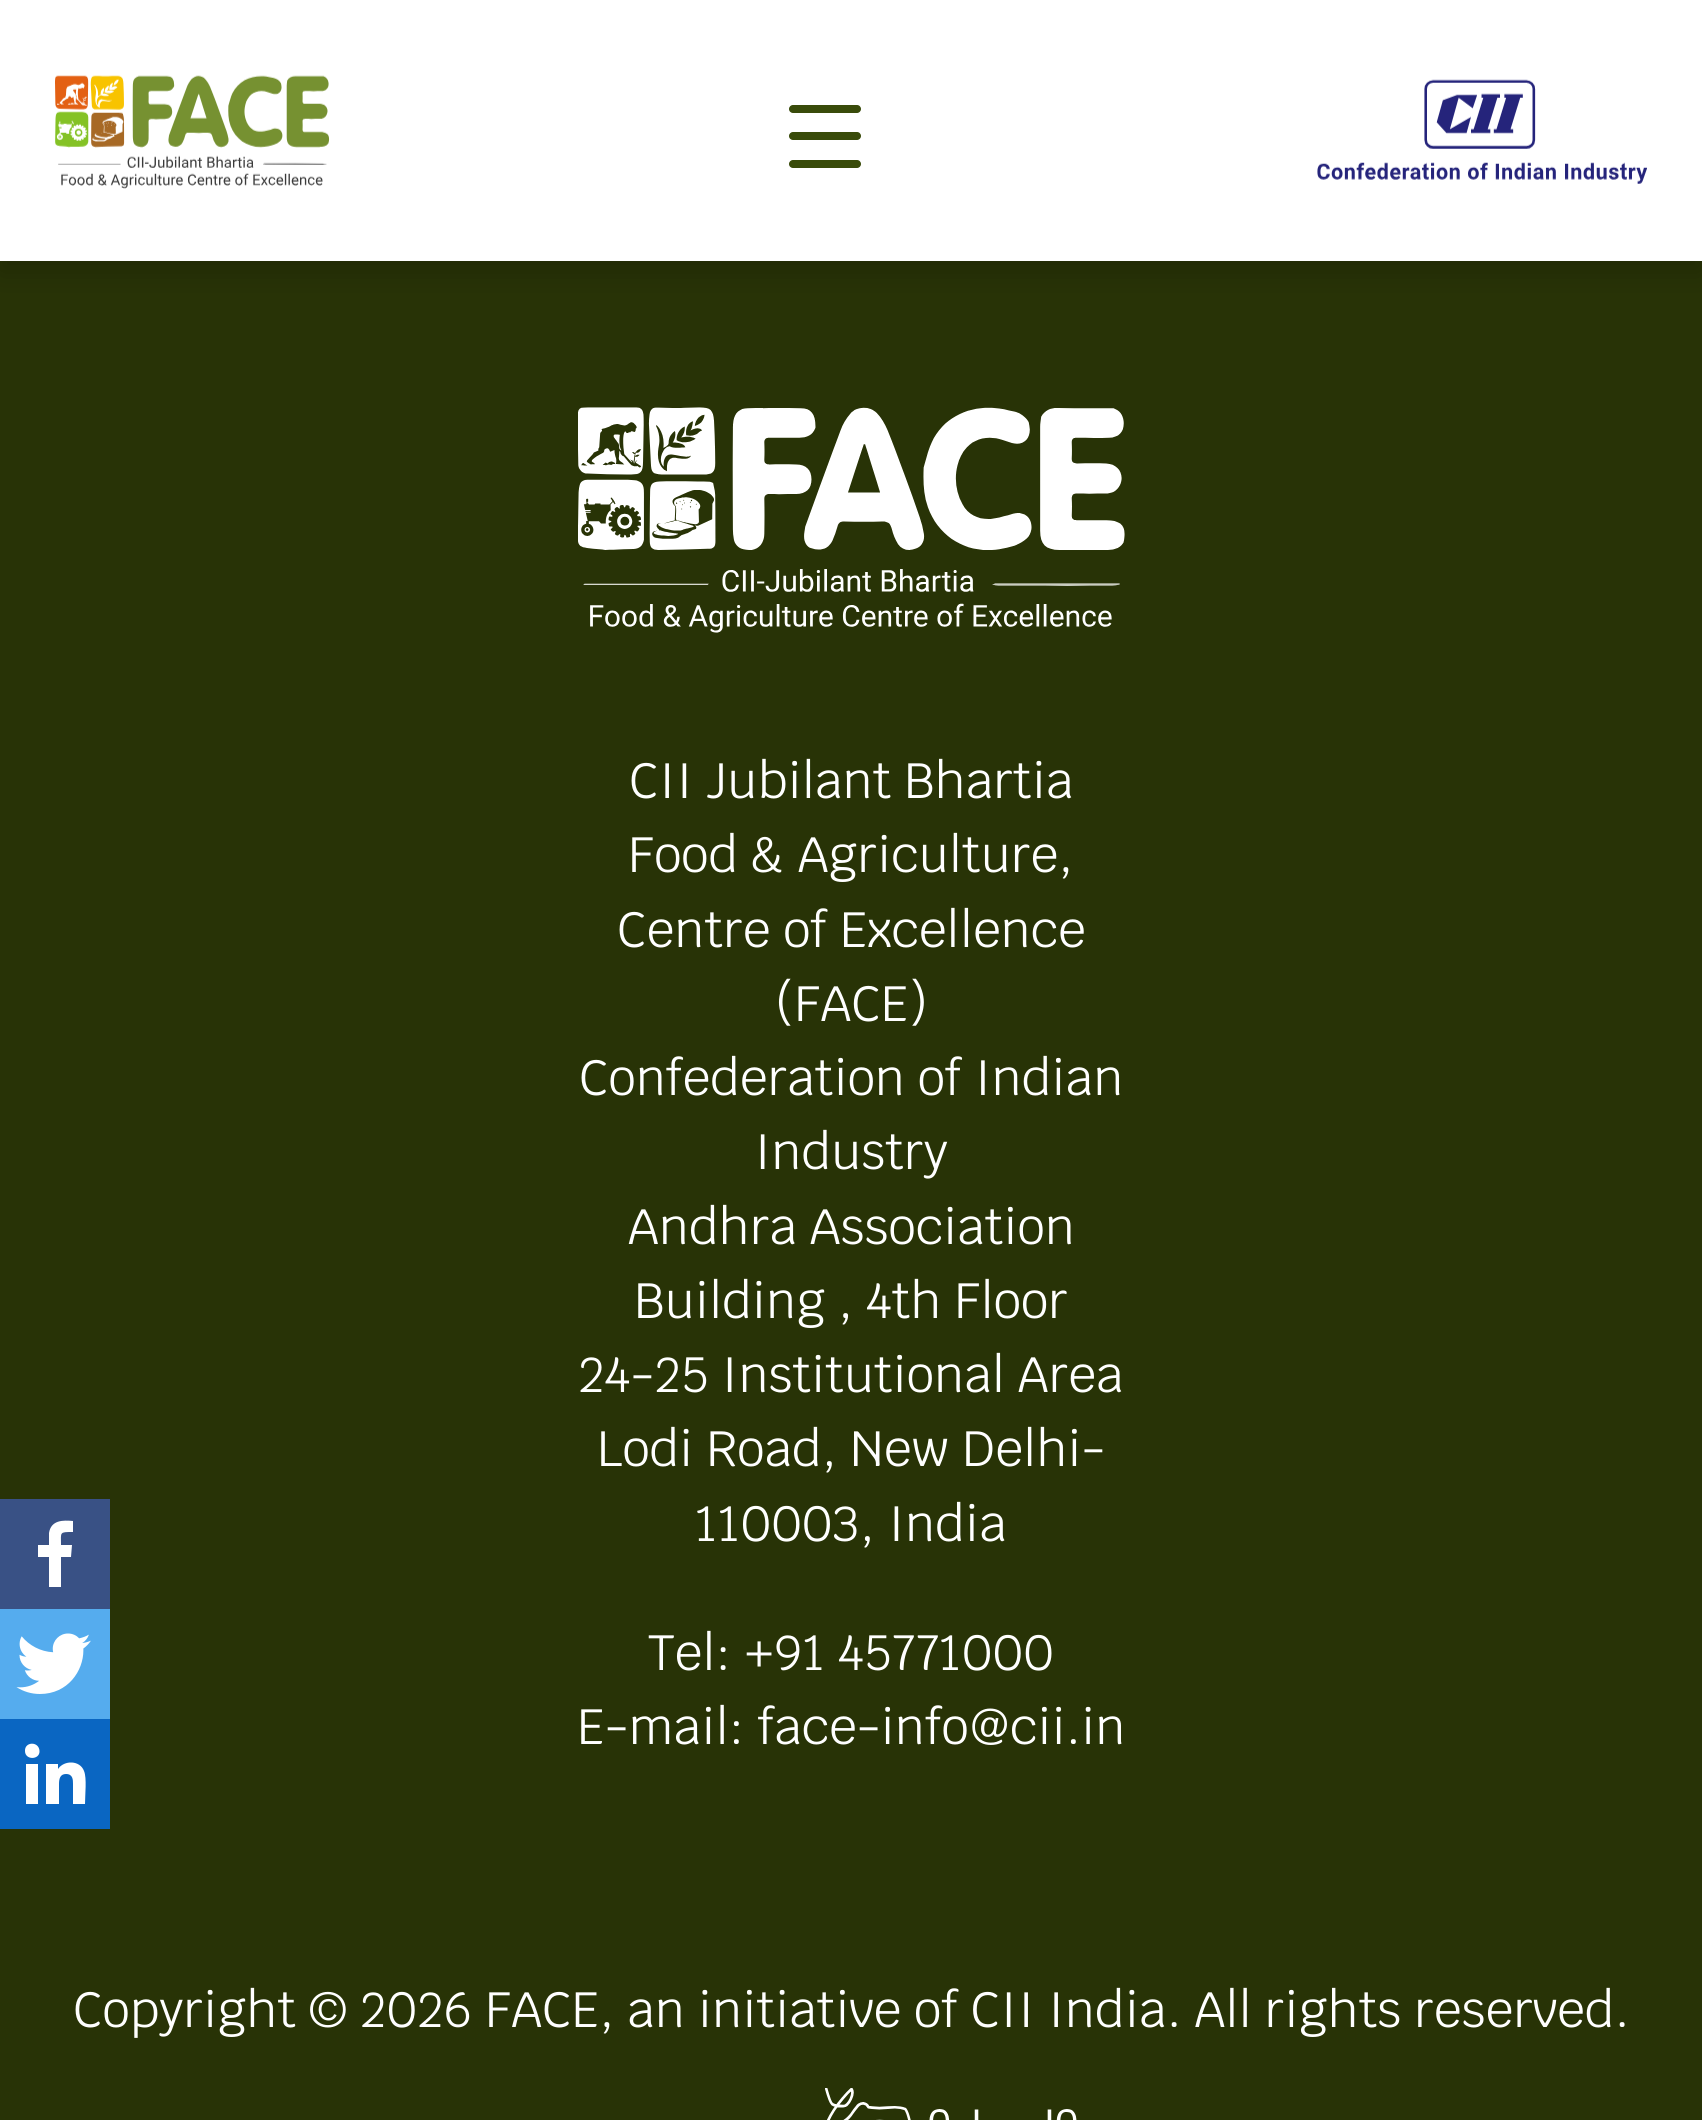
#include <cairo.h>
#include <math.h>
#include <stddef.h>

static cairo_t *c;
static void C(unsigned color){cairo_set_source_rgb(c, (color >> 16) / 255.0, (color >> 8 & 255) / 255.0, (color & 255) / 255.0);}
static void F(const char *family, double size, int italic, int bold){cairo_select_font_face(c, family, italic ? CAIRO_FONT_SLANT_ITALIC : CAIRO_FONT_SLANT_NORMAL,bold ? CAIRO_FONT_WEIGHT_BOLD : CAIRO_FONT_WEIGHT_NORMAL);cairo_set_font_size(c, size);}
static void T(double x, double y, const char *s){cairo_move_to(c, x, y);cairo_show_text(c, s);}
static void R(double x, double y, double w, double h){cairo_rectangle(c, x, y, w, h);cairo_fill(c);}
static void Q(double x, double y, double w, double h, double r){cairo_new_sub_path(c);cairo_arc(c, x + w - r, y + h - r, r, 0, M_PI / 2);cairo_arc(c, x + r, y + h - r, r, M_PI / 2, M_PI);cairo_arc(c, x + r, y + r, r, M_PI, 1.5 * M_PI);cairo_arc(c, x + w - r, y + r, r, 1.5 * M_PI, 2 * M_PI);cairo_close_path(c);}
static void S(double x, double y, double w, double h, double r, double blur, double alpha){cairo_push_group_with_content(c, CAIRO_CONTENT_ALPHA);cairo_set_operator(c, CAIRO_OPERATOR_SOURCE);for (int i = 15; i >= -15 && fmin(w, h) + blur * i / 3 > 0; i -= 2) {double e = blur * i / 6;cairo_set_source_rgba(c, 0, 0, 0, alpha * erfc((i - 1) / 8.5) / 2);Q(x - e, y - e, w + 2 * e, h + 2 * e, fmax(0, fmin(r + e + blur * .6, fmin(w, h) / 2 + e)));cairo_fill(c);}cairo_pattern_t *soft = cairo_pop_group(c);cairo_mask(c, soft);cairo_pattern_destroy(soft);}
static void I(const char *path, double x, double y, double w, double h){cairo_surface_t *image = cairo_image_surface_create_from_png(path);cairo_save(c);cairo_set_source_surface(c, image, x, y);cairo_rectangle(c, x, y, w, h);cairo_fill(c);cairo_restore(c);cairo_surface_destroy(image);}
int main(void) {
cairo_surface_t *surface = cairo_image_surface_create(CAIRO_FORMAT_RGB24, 1702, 2120);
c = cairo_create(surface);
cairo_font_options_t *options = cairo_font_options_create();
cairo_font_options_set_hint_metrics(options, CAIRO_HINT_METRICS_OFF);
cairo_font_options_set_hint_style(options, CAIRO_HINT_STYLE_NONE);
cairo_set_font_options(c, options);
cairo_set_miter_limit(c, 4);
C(0x283306);
cairo_paint(c);
C(0x000000);
S(0,11,1702,261,0,14,.2);
C(0xffffff);
R(0,0,1702,261);
I("1.png",55,75,275,114);
C(0x394b0a);
Q(789,105,72,8,4);
cairo_fill(c);
Q(789,132,72,8,4);
cairo_fill(c);
Q(789,160,72,8,4);
cairo_fill(c);
I("2.png",1317,79,330,105);
I("3.png",578,407,547,226);
C(0x395185);
R(0,1499,110,110);
C(0xffffff);
cairo_new_path(c);
cairo_move_to(c,61,1587);
cairo_line_to(c,61,1557);
cairo_line_to(c,71,1557);
cairo_line_to(c,72,1545);
cairo_line_to(c,61,1545);
cairo_curve_to(c,61,1532,59,1532,73,1532);
cairo_line_to(c,73,1521);
cairo_curve_to(c,63,1520,51,1520,49,1533);
cairo_line_to(c,49,1545);
cairo_line_to(c,38,1545);
cairo_line_to(c,38,1557);
cairo_line_to(c,49,1557);
cairo_line_to(c,49,1587);
cairo_close_path(c);
cairo_fill(c);
I("4.png",0,1609,110,110);
C(0x0a66c2);
R(0,1719,110,110);
C(0xffffff);
cairo_new_path(c);
cairo_move_to(c,73,1804);
cairo_line_to(c,85,1804);
cairo_curve_to(c,85,1795,87,1778,84,1771);
cairo_curve_to(c,80,1760,64,1760,58,1769);
cairo_line_to(c,58,1764);
cairo_line_to(c,46,1764);
cairo_line_to(c,46,1804);
cairo_line_to(c,59,1804);
cairo_line_to(c,59,1784);
cairo_curve_to(c,59,1779,60,1774,66,1774);
cairo_curve_to(c,73,1774,73,1780,73,1784);
cairo_close_path(c);
cairo_move_to(c,25,1751);
cairo_curve_to(c,25,1760.5,40,1760,39.5,1751);
cairo_curve_to(c,39,1741,24.5,1741.5,25,1751);
cairo_close_path(c);
cairo_fill(c);
R(26,1764,12,40);
F("Krub",49.5,0,0);
T(629,798,"CII Jubilant Bhartia");
T(628,872,"Food & Agriculture,");
T(617,947,"Centre of Excellence");
T(775,1021,"(FACE)");
T(579,1095,"Confederation of Indian");
T(754,1169,"Industry");
T(628,1244,"Andhra Association");
T(634,1318,"Building , 4th Floor");
T(578,1392,"24-25 Institutional Area");
T(597,1466,"Lodi Road, New Delhi-");
T(695,1541,"110003, India");
T(648,1670,"Tel: +91 45771000");
T(577,1744,"E-mail: face-info@cii.in");
T(73,2027,"Copyright © 2026 FACE, an initiative of CII India. All rights reserved.");
I("5.png",825,2088,252,32);
cairo_surface_write_to_png(surface, "o.png");
cairo_font_options_destroy(options);
cairo_destroy(c);
cairo_surface_destroy(surface);
return 0;
}
